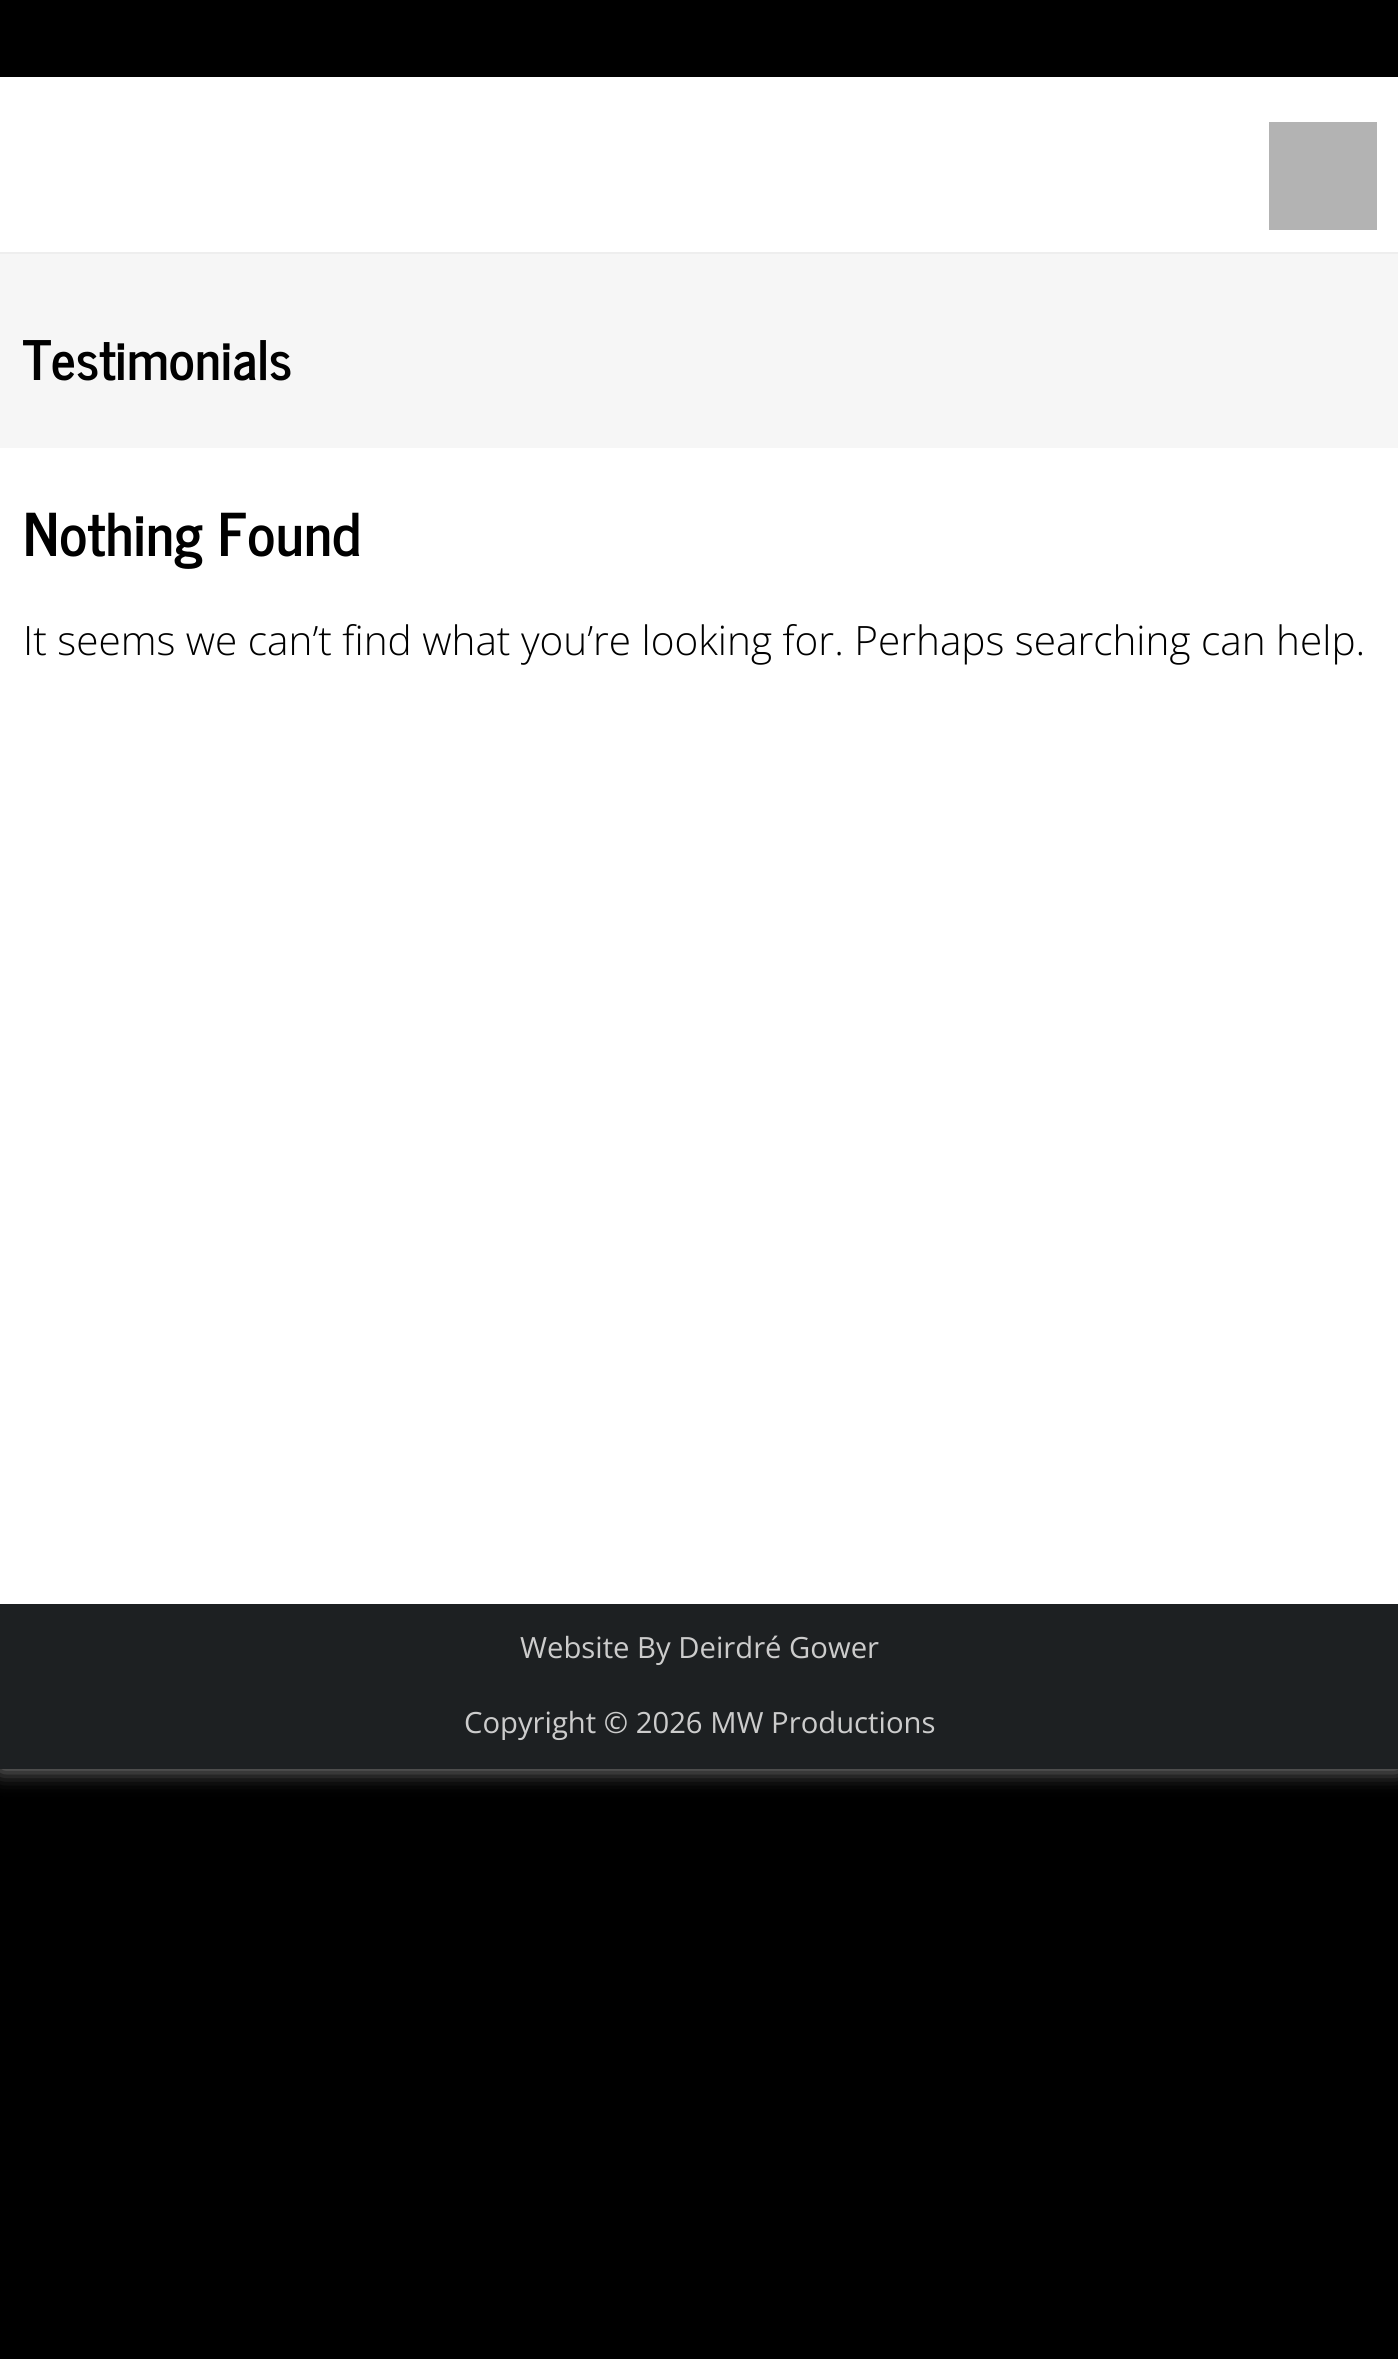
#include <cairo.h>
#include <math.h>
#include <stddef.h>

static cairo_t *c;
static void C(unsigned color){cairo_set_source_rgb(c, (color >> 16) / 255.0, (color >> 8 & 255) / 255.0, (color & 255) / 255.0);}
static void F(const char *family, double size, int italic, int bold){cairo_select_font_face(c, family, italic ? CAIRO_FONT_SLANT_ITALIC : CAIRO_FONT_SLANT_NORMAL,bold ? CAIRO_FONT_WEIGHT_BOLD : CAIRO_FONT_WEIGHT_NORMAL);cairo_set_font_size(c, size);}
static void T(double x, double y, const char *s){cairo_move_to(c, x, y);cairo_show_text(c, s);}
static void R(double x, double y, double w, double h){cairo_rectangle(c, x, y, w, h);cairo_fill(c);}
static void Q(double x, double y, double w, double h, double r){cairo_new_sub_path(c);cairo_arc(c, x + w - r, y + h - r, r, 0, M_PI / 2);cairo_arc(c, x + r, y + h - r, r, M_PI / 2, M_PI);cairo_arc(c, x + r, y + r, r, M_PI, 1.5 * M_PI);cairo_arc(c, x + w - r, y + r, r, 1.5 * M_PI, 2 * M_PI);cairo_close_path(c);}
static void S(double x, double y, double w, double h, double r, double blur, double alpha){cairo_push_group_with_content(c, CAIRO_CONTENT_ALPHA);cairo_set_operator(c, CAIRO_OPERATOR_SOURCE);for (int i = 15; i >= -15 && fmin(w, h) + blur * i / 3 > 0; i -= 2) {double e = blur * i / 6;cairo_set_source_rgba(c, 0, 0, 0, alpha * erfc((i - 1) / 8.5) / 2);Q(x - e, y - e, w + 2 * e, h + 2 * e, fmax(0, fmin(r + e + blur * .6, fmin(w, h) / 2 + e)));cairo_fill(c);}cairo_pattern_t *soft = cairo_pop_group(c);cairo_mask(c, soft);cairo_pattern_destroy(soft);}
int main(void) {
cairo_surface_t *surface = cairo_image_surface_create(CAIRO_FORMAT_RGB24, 1398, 2359);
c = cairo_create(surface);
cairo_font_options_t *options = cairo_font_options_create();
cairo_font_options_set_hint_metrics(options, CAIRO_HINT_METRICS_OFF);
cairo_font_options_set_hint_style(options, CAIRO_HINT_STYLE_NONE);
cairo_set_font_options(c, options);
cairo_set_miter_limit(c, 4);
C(0x000000);
cairo_paint(c);
C(0x999999);
S(0,0,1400,1769,0,11,1);
C(0xffffff);
R(0,77,1398,1527);
C(0x000000);
R(0,0,1398,77);
C(0xeeeeee);
R(0,252,1398,2);
C(0xb3b3b3);
R(1269,122,108,108);
C(0xf6f6f6);
R(0,254,1398,194);
F("News Cycle",54,0,1);
C(0x000000);
T(23,380,"Testimonials");
F("News Cycle",58.5,0,1);
T(23,556,"Nothing Found");
F("Open Sans Light",40.5,0,0);
T(23,655,"It seems we can’t find what you’re looking for. Perhaps searching can help.");
C(0x1d2022);
R(0,1604,1398,165);
F("Open Sans",29.25,0,0);
C(0xcccccc);
T(520,1658,"Website By Deirdré Gower");
T(464,1733,"Copyright © 2026 MW Productions");
cairo_surface_write_to_png(surface, "o.png");
cairo_font_options_destroy(options);
cairo_destroy(c);
cairo_surface_destroy(surface);
return 0;
}
